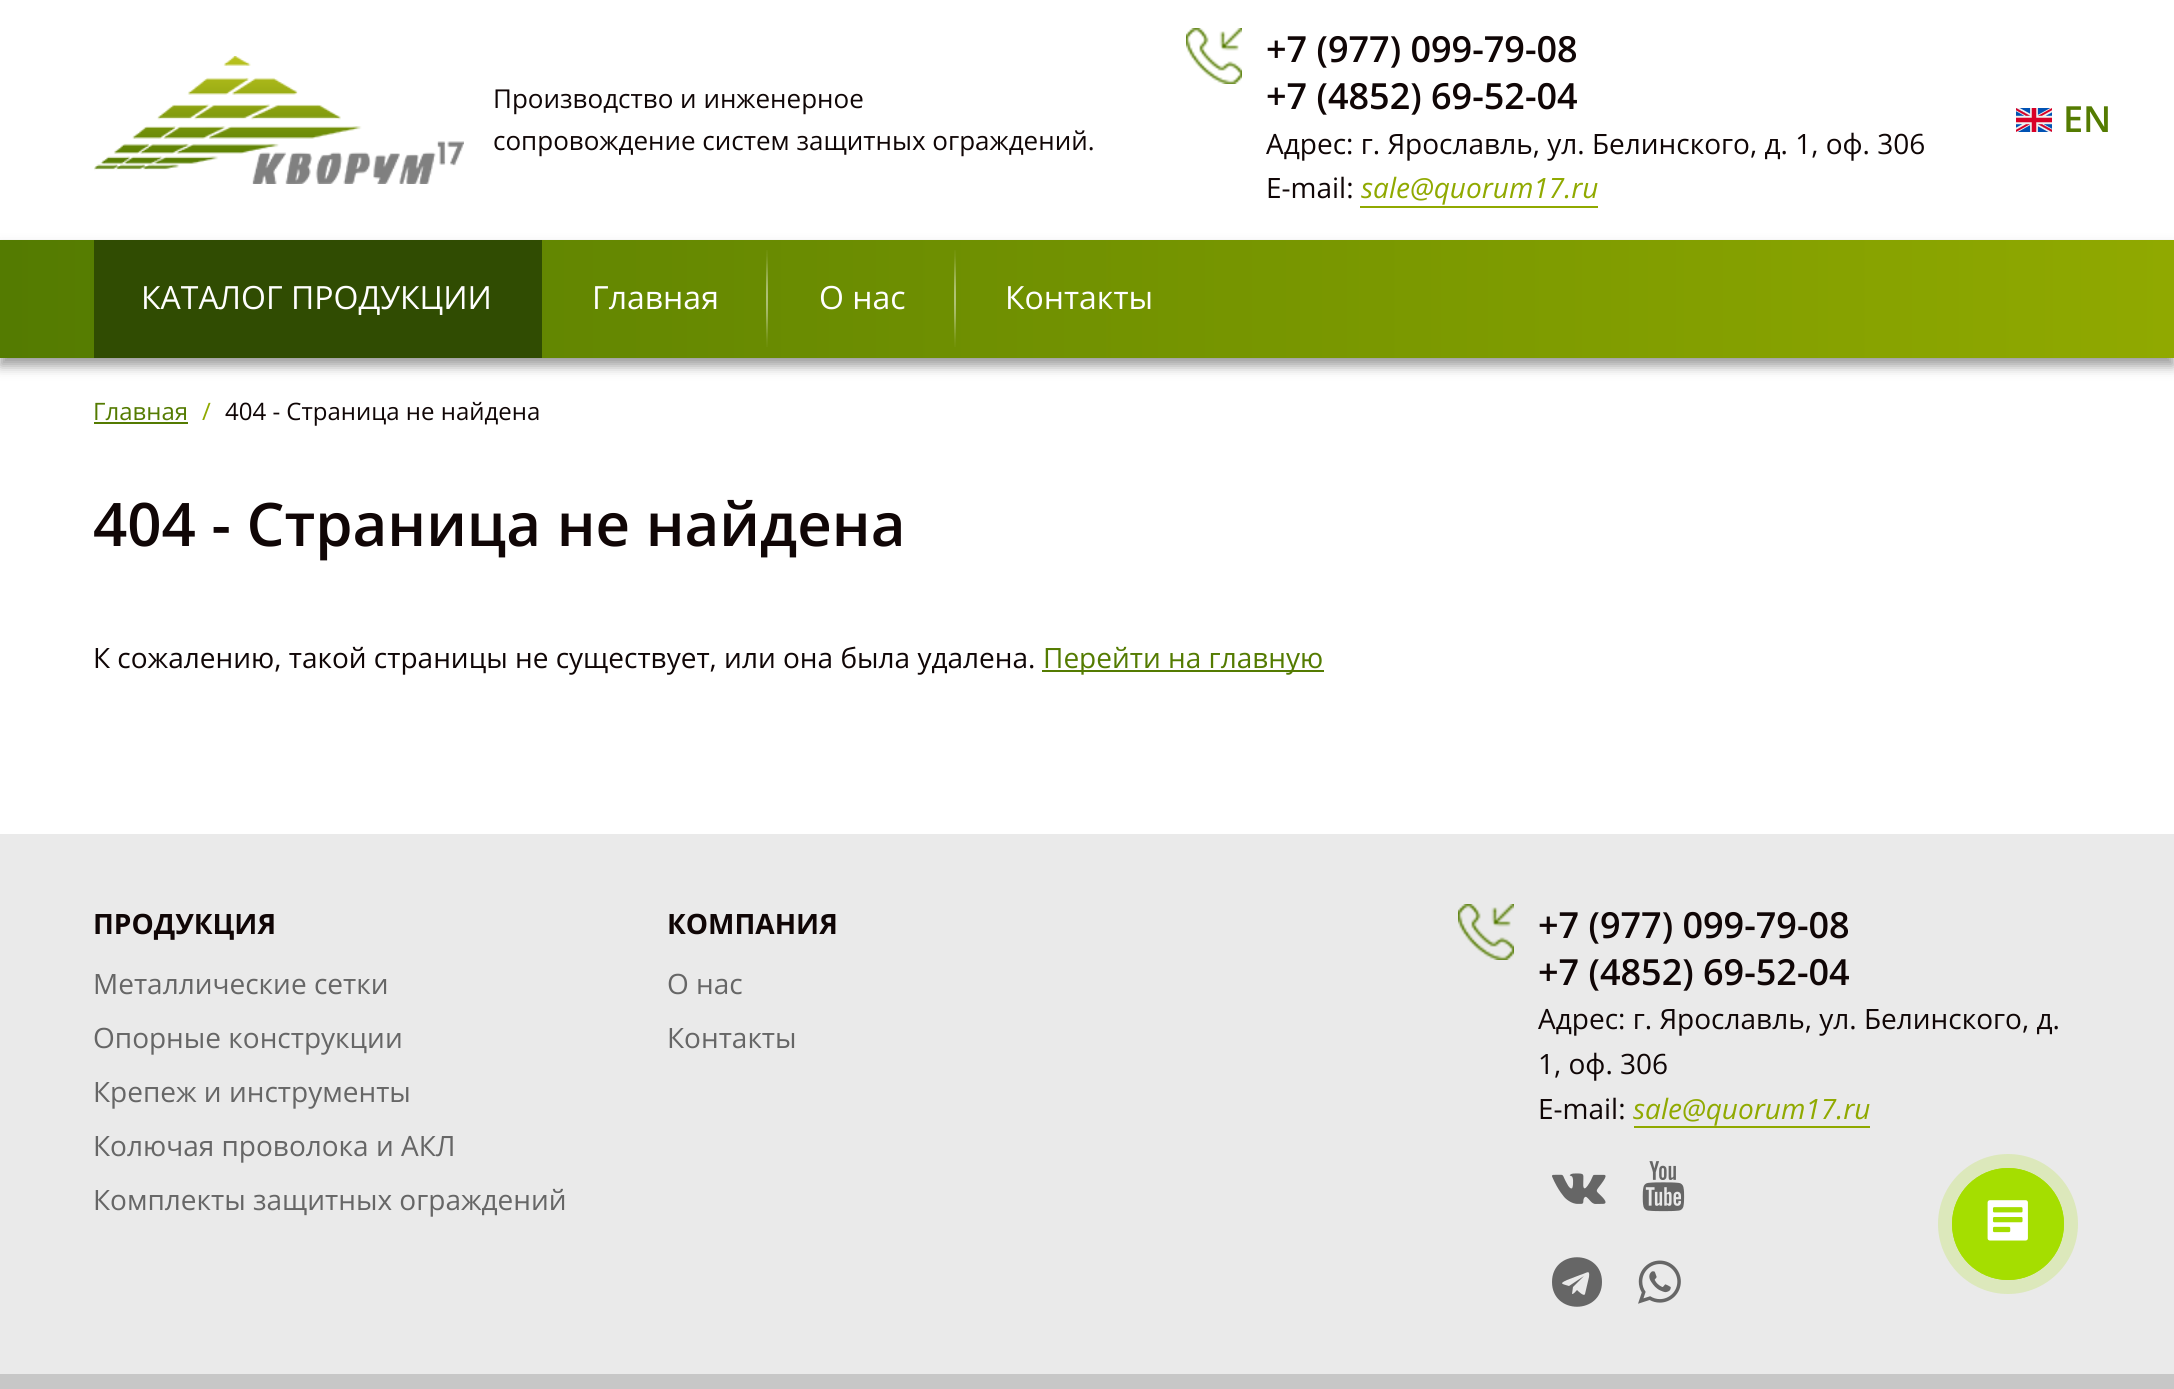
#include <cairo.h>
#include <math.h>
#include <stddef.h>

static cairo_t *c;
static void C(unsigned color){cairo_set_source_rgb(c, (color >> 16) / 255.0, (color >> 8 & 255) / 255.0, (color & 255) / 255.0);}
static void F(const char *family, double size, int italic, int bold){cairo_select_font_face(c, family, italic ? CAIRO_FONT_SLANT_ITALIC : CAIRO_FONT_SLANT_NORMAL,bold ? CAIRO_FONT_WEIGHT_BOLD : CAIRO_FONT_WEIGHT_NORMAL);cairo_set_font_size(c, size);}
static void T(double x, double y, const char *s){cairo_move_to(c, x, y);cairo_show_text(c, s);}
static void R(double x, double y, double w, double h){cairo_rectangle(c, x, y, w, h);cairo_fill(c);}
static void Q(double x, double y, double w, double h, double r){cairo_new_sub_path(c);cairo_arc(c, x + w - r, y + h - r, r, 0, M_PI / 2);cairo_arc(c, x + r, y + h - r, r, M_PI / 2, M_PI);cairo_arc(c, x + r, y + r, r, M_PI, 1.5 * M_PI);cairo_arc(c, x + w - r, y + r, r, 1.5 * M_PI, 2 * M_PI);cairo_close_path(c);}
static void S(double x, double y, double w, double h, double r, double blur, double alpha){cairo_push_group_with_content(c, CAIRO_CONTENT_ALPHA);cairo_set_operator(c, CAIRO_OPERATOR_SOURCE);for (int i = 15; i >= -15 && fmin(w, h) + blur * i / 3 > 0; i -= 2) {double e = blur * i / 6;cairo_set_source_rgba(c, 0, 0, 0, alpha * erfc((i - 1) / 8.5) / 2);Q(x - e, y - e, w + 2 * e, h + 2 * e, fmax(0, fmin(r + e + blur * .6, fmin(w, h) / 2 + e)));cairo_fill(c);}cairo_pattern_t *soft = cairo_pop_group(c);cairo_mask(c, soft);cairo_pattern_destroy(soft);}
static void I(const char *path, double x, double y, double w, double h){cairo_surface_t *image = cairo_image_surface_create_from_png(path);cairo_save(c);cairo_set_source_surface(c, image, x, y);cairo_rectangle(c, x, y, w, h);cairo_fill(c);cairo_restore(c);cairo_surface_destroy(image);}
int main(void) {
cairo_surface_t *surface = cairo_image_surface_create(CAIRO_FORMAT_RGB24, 2174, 1389);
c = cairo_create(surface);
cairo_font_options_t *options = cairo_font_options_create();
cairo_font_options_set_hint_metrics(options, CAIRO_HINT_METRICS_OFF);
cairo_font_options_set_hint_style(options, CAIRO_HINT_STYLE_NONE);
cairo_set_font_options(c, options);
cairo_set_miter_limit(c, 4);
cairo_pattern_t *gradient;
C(0xffffff);
cairo_paint(c);
I("1.png",94,56,370,128);
F("Open Sans",26,0,0);
C(0x100606);
T(493,108,"Производство и инженерное");
T(493,150,"сопровождение систем защитных ограждений.");
I("2.png",1186,28,56,56);
F("Open Sans SemiBold",36,0,0);
T(1266,62,"+7 (977) 099-79-08");
T(1266,109,"+7 (4852) 69-52-04");
F("Open Sans",28,0,0);
T(1266,154,"Адрес: г. Ярославль, ул. Белинского, д. 1, оф. 306");
T(1266,198,"E-mail:");
F("Open Sans",28,1,0);
C(0x90a900);
T(1361,198,"sale@quorum17.ru");
R(1360,206,238,2);
I("3.png",2016,108,36,24);
F("Open Sans SemiBold",36,0,0);
C(0x547b01);
T(2063,132,"EN");
C(0x090909);
S(0,248,2174,118,0,6,.4);
gradient = cairo_pattern_create_linear(0,299,2174,299);
cairo_pattern_add_color_stop_rgba(gradient,0,0.329,0.482,0.004,1);
cairo_pattern_add_color_stop_rgba(gradient,1,0.565,0.663,0,1);
cairo_set_source(c,gradient);
cairo_pattern_destroy(gradient);
R(0,240,2174,118);
C(0x304c02);
R(94,240,448,118);
F("Open Sans",32,0,0);
C(0xffffff);
T(141,309,"КАТАЛОГ ПРОДУКЦИИ");
T(592,309,"Главная");
I("4.png",766,250,2,97);
T(819,309,"О нас");
I("5.png",954,250,2,97);
T(1005,309,"Контакты");
F("Open Sans",24,0,0);
C(0x547b01);
T(93,420,"Главная");
R(94,422,94,2);
C(0x90a900);
T(202,420,"/");
C(0x100606);
T(225,420,"404 - Страница не найдена");
F("Open Sans SemiBold",60,0,0);
T(93,546,"404 - Страница не найдена");
F("Open Sans",28,0,0);
T(93,668,"К сожалению, такой страницы не существует, или она была удалена.");
C(0x547b01);
R(1042,670,282,2);
T(1043,668,"Перейти на главную");
C(0xeaeaea);
R(0,834,2174,540);
F("Open Sans",28,0,1);
C(0x100606);
T(93,934,"ПРОДУКЦИЯ");
F("Open Sans",28,0,0);
C(0x666666);
T(93,994,"Металлические сетки");
T(93,1048,"Опорные конструкции");
T(93,1102,"Крепеж и инструменты");
T(93,1156,"Колючая проволока и АКЛ");
T(93,1210,"Комплекты защитных ограждений");
F("Open Sans",28,0,1);
C(0x100606);
T(667,934,"КОМПАНИЯ");
F("Open Sans",28,0,0);
C(0x666666);
T(667,994,"О нас");
T(667,1048,"Контакты");
I("6.png",1458,904,56,56);
F("Open Sans SemiBold",36,0,0);
C(0x100606);
T(1538,938,"+7 (977) 099-79-08");
T(1538,985,"+7 (4852) 69-52-04");
F("Open Sans",28,0,0);
T(1538,1029,"Адрес: г. Ярославль, ул. Белинского, д.");
T(1538,1074,"1, оф. 306");
T(1538,1119,"E-mail:");
F("Open Sans",28,1,0);
C(0x90a900);
T(1633,1119,"sale@quorum17.ru");
R(1634,1126,236,2);
I("7.png",1552,1173,54,31);
I("8.png",1642,1161,43,51);
C(0x666666);
cairo_new_path(c);
cairo_move_to(c,1585,1294);
cairo_curve_to(c,1584,1297,1578,1291,1577,1290);
cairo_curve_to(c,1576,1291,1574,1294,1572,1294);
cairo_line_to(c,1573,1287);
cairo_line_to(c,1584,1276);
cairo_line_to(c,1569,1286);
cairo_curve_to(c,1563,1284,1558,1284,1567,1280);
cairo_line_to(c,1580,1275);
cairo_curve_to(c,1587,1273,1590,1269,1589,1277);
cairo_close_path(c);
cairo_move_to(c,1602,1282);
cairo_curve_to(c,1602,1249,1552,1249,1552,1282);
cairo_curve_to(c,1552,1315,1602,1315,1602,1282);
cairo_close_path(c);
cairo_fill(c);
I("9.png",1638,1260,43,44);
C(0xc7c7c7);
R(0,1374,2174,15);
C(0xdce8bb);
cairo_arc(c,2008,1224,70,0,2 * M_PI);
cairo_fill(c);
cairo_arc(c,2008,1224,55,0,2 * M_PI);
C(0xa5de00);
cairo_stroke(c);
cairo_arc(c,2008,1224,56,0,2 * M_PI);
cairo_fill(c);
I("10.png",1987,1200,41,41);
cairo_surface_write_to_png(surface, "o.png");
cairo_font_options_destroy(options);
cairo_destroy(c);
cairo_surface_destroy(surface);
return 0;
}
